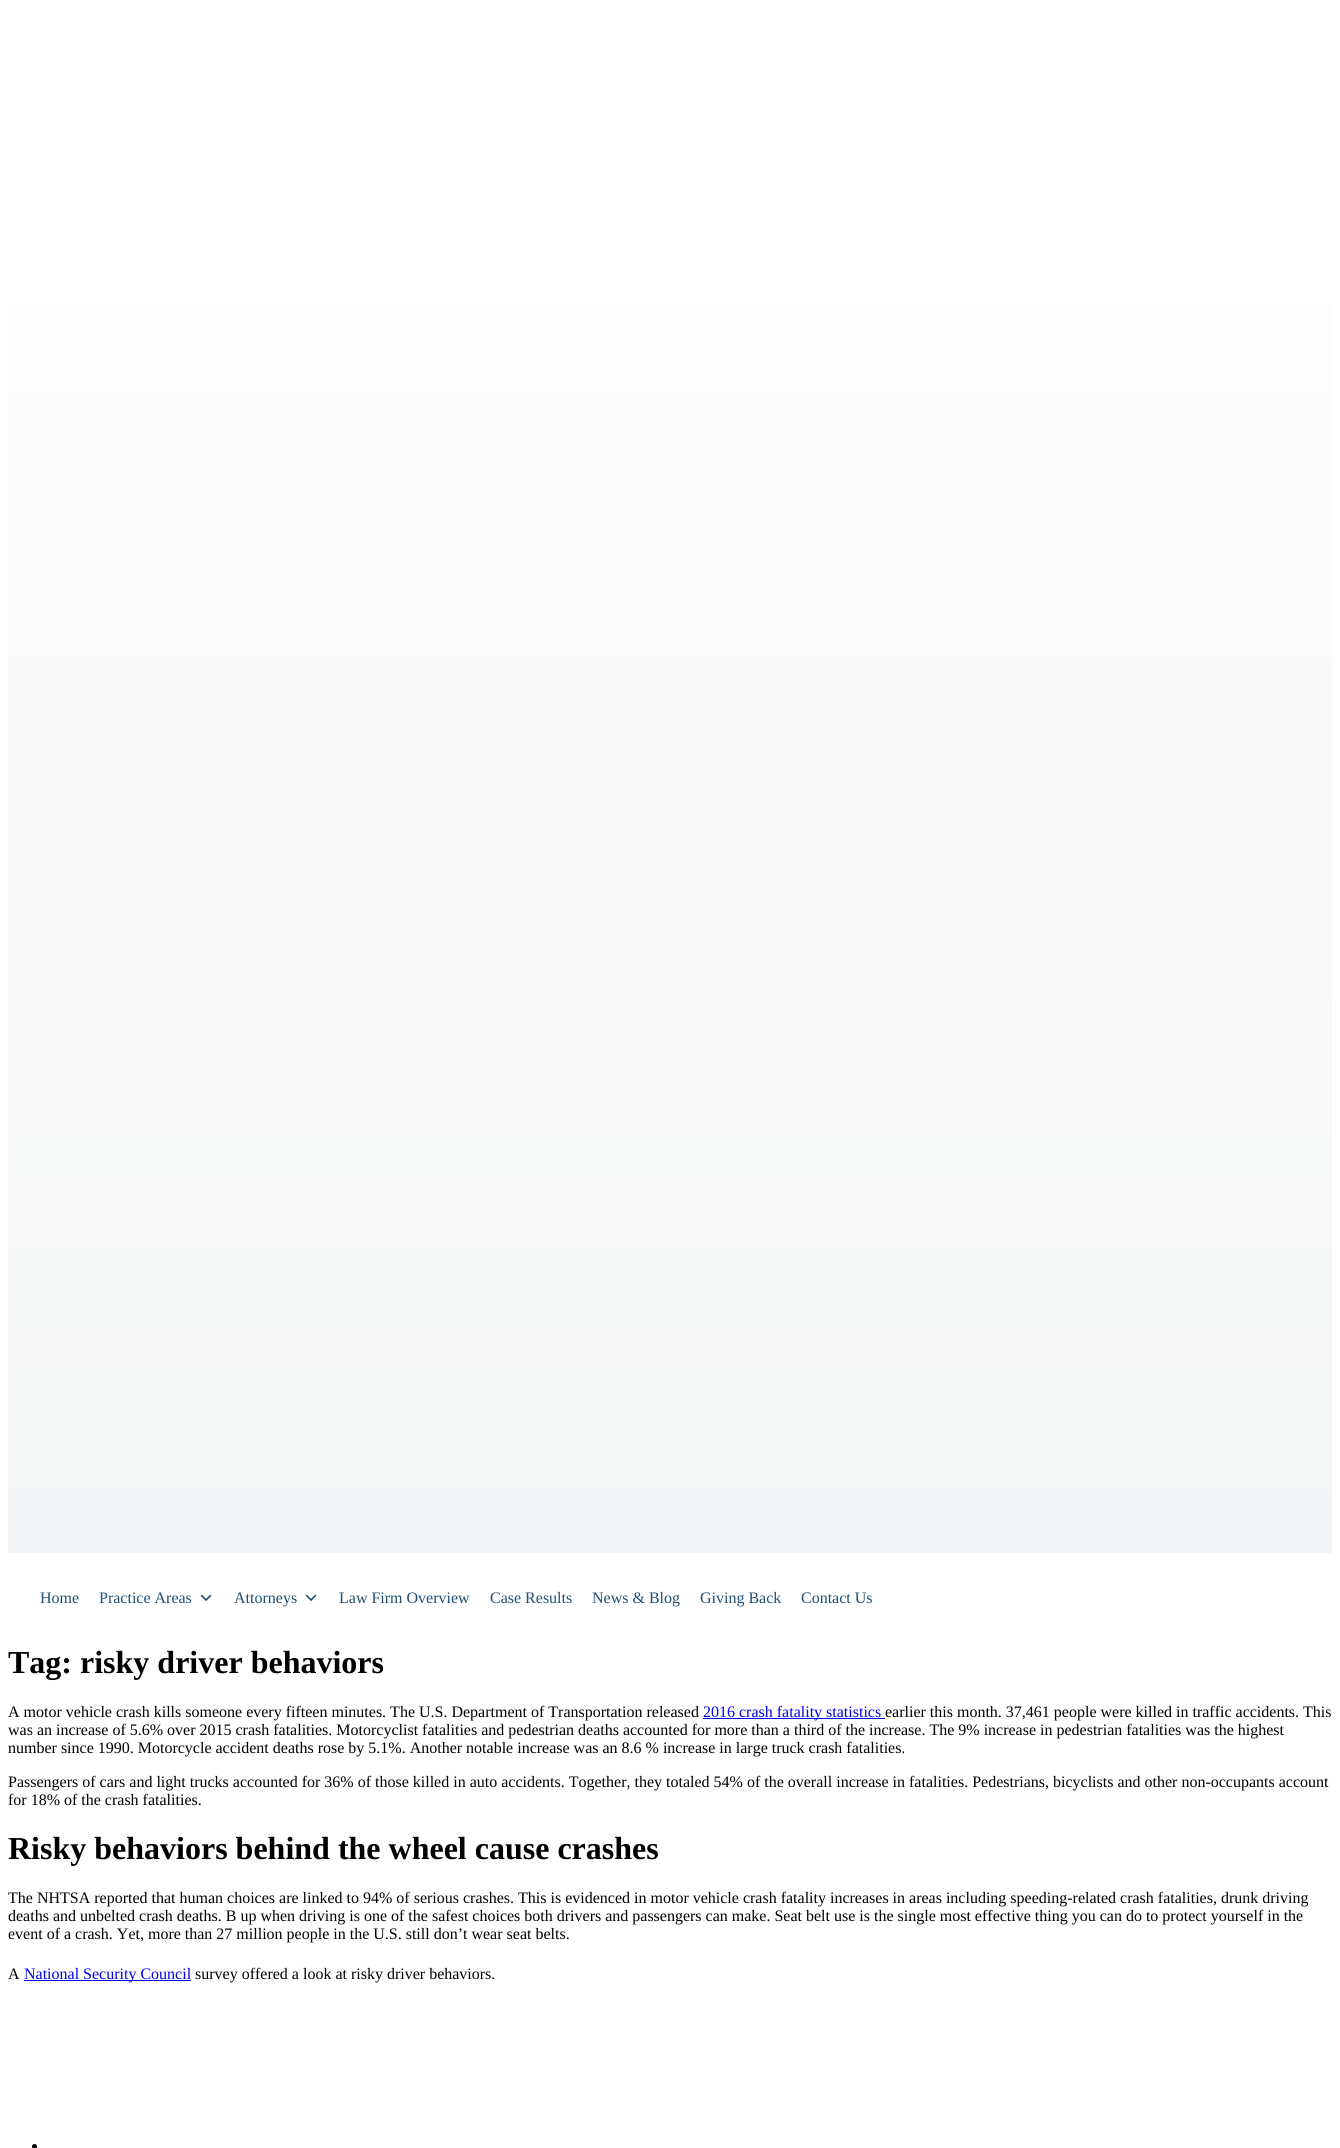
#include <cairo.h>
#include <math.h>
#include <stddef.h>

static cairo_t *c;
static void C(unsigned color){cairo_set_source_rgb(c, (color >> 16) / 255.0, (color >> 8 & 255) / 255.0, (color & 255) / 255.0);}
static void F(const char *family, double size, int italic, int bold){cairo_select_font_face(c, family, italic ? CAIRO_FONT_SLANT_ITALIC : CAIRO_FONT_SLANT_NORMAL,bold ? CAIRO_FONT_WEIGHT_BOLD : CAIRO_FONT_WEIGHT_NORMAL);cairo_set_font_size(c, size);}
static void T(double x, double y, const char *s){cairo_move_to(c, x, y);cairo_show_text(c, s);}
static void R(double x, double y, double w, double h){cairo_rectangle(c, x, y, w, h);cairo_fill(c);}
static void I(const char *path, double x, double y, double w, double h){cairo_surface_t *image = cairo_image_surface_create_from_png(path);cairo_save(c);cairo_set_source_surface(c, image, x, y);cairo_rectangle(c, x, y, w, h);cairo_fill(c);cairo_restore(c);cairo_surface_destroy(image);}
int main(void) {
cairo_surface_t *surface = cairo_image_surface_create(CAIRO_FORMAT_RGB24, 1340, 2148);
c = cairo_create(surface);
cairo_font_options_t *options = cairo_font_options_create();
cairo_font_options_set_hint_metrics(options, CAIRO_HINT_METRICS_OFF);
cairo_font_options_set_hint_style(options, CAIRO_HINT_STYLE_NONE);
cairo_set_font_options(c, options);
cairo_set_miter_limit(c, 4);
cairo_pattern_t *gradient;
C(0xffffff);
cairo_paint(c);
gradient = cairo_pattern_create_linear(670,8,670,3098);
cairo_pattern_add_color_stop_rgba(gradient,0,1,1,1,1);
cairo_pattern_add_color_stop_rgba(gradient,1,0.898,0.922,0.933,1);
cairo_set_source(c,gradient);
cairo_pattern_destroy(gradient);
R(8,305,1324,1248);
F("Liberation Serif",16,0,0);
C(0x204f72);
T(40,1603,"Home");
T(99,1603,"Practice Areas");
I("1.png",200,1594,12,7);
T(234,1603,"Attorneys");
I("1.png",305,1594,12,7);
T(339,1603,"Law Firm Overview");
T(490,1603,"Case Results");
T(592,1603,"News & Blog");
T(700,1603,"Giving Back");
T(801,1603,"Contact Us");
F("Liberation Serif",32,0,1);
C(0x000000);
T(8,1673,"Tag: risky driver behaviors");
F("Liberation Serif",16,0,0);
T(8,1717,"A motor vehicle crash kills someone every fifteen minutes. The U.S. Department of Transportation released");
C(0x0000ee);
R(703,1718,182,1);
T(703,1717,"2016 crash fatality statistics");
C(0x000000);
T(885,1717,"earlier this month. 37,461 people were killed in traffic accidents. This");
T(8,1735,"was an increase of 5.6% over 2015 crash fatalities. Motorcyclist fatalities and pedestrian deaths accounted for more than a third of the increase. The 9% increase in pedestrian fatalities was the highest");
T(8,1753,"number since 1990. Motorcycle accident deaths rose by 5.1%. Another notable increase was an 8.6 % increase in large truck crash fatalities.");
T(8,1787,"Passengers of cars and light trucks accounted for 36% of those killed in auto accidents. Together, they totaled 54% of the overall increase in fatalities. Pedestrians, bicyclists and other non-occupants account");
T(8,1805,"for 18% of the crash fatalities.");
F("Liberation Serif",32,0,1);
T(8,1859,"Risky behaviors behind the wheel cause crashes");
F("Liberation Serif",16,0,0);
T(8,1903,"The NHTSA reported that human choices are linked to 94% of serious crashes. This is evidenced in motor vehicle crash fatality increases in areas including speeding-related crash fatalities, drunk driving");
T(8,1921,"deaths and unbelted crash deaths. B up when driving is one of the safest choices both drivers and passengers can make. Seat belt use is the single most effective thing you can do to protect yourself in the");
T(8,1939,"event of a crash. Yet, more than 27 million people in the U.S. still don’t wear seat belts.");
T(8,1979,"A");
C(0x0000ee);
R(24,1980,167,1);
T(24,1979,"National Security Council");
C(0x000000);
T(195,1979,"survey offered a look at risky driver behaviors.");
cairo_new_path(c);
cairo_arc(c,34.5,2146.5,2.5,0,2 * M_PI);
cairo_fill(c);
cairo_surface_write_to_png(surface, "o.png");
cairo_font_options_destroy(options);
cairo_destroy(c);
cairo_surface_destroy(surface);
return 0;
}
